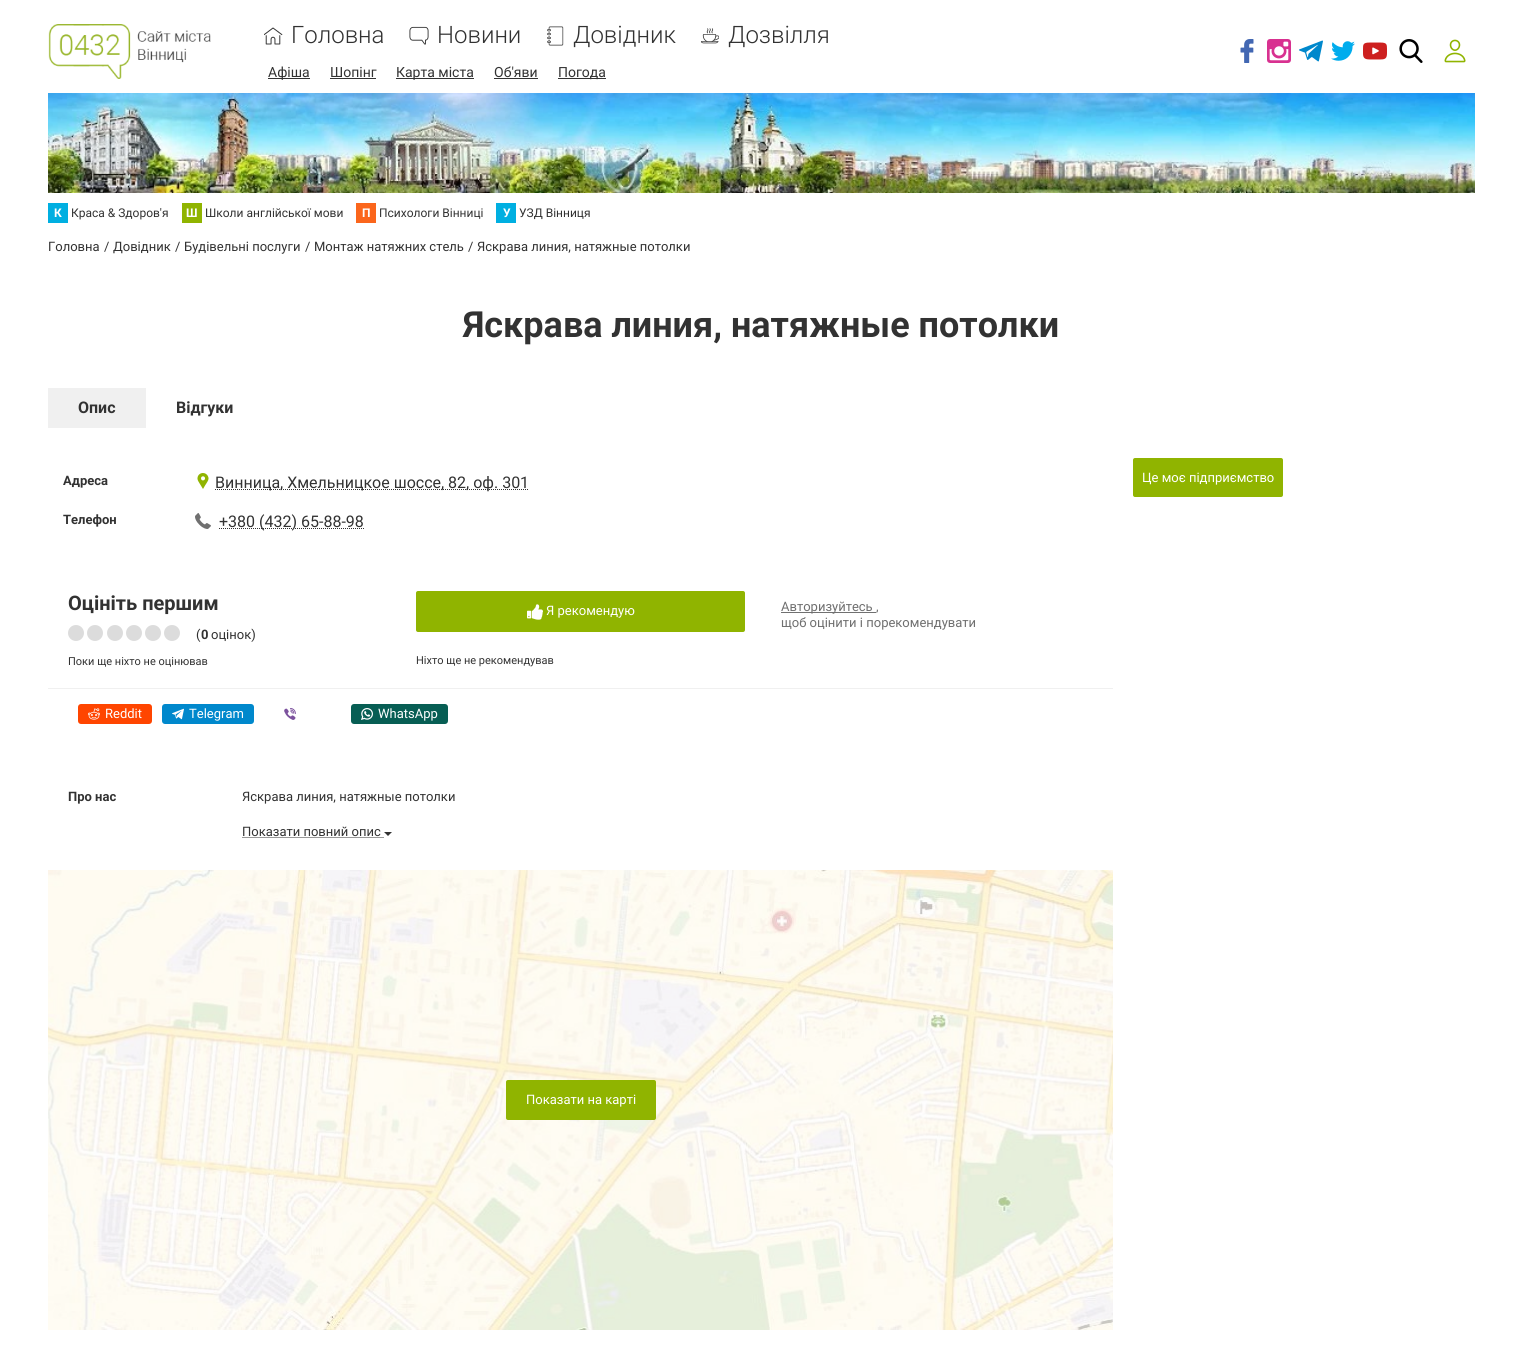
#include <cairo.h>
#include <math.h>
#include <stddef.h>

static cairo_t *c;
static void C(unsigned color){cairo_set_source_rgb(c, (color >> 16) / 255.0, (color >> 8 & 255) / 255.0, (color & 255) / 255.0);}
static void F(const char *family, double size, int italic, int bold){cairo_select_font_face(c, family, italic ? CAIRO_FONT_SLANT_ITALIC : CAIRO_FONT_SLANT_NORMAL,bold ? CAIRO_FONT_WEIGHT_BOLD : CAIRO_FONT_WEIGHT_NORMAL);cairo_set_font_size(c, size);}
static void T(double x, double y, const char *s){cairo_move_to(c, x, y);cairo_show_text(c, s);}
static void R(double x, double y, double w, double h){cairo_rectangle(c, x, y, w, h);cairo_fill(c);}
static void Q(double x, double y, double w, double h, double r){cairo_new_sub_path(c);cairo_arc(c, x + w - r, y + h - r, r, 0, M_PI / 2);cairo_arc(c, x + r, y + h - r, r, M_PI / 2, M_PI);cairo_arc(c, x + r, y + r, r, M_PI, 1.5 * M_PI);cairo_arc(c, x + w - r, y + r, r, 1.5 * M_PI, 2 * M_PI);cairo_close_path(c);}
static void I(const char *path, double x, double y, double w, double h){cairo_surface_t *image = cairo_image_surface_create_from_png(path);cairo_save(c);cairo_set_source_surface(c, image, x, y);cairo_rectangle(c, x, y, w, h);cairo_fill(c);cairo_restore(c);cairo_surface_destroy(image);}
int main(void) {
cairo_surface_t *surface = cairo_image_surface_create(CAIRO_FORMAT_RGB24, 1523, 1367);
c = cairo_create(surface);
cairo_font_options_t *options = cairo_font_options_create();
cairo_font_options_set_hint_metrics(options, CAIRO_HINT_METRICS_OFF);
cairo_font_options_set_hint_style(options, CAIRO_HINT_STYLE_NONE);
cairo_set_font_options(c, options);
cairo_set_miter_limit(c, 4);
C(0xffffff);
cairo_paint(c);
I("1.png",48,24,163,55);
I("2.png",264,27,19,18);
F("Roboto Light",24,0,0);
C(0x323232);
T(291,43,"Головна");
I("3.png",409,26,20,19);
T(437,43,"Новини");
I("4.png",547,26,17,20);
T(573,43,"Довідник");
I("5.png",701,28,18,16);
T(728,43,"Дозвілля");
R(268,78,42,1);
F("Roboto",14,0,0);
T(268,77,"Афіша");
T(330,77,"Шопінг");
R(330,78,46,1);
R(396,78,78,1);
T(396,77,"Карта міста");
T(494,77,"Об'яви");
R(494,78,44,1);
R(558,78,48,1);
T(558,77,"Погода");
I("6.png",1240,39,14,24);
I("7.png",1267,39,24,24);
I("8.png",1299,40,24,22);
I("9.png",1331,41,24,20);
I("10.png",1363,42,24,18);
I("11.png",1399,39,24,24);
I("12.png",1444,39,22,24);
I("13.png",48,93,1427,100);
C(0x00afe1);
R(48,203,20,20);
F("Roboto",12,0,1);
C(0xffffff);
T(54,217,"К");
F("Roboto",12,0,0);
C(0x323232);
T(71,217,"Краса & Здоров'я");
C(0x90b400);
R(182,203,20,20);
F("Roboto",12,0,1);
C(0xffffff);
T(186,217,"Ш");
F("Roboto",12,0,0);
C(0x323232);
T(205,217,"Школи англійської мови");
C(0xfb661c);
R(356,203,20,20);
F("Roboto",12,0,1);
C(0xffffff);
T(362,217,"П");
F("Roboto",12,0,0);
C(0x323232);
T(379,217,"Психологи Вінниці");
C(0x00afe1);
R(496,203,20,20);
F("Roboto",12,0,1);
C(0xffffff);
T(503,217,"У");
F("Roboto",12,0,0);
C(0x323232);
T(519,217,"УЗД Вінниця");
F("Roboto",13,0,0);
T(48,251,"Головна");
T(104,251,"/");
T(113,251,"Довідник");
T(175,251,"/");
T(184,251,"Будівельні послуги");
T(305,251,"/");
T(314,251,"Монтаж натяжних стель");
T(468,251,"/");
T(477,251,"Яскрава линия, натяжные потолки");
F("Roboto",36,0,1);
T(463,337,"Яскрава линия, натяжные потолки");
C(0xf0f0f0);
R(48,388,98,40);
F("Roboto",16,0,1);
C(0x323232);
T(78,413,"Опис");
T(176,413,"Відгуки");
F("Roboto",13,0,1);
T(63,485,"Адреса");
I("14.png",197,473,12,16);
cairo_new_path(c);
cairo_move_to(c,215,489.5);
cairo_line_to(c,529,489.5);
cairo_set_line_width(c,1);
cairo_set_dash(c,(double[]){1,1},2,0);
cairo_stroke(c);
F("Roboto",16,0,0);
T(215,488,"Винница, Хмельницкое шоссе, 82, оф. 301");
F("Roboto",13,0,1);
T(63,524,"Телефон");
I("15.png",195,513,16,16);
cairo_new_path(c);
cairo_move_to(c,219,528.5);
cairo_line_to(c,364,528.5);
cairo_stroke(c);
F("Roboto",16,0,0);
T(219,527,"+380 (432) 65-88-98");
F("Roboto",20,0,1);
T(68,610,"Оцініть першим");
C(0xdcdcdc);
cairo_new_path(c);
cairo_arc(c,76,633,8,0,2 * M_PI);
cairo_fill(c);
cairo_arc(c,95,633,8,0,2 * M_PI);
cairo_fill(c);
cairo_arc(c,115,633,8,0,2 * M_PI);
cairo_fill(c);
cairo_arc(c,134,633,8,0,2 * M_PI);
cairo_fill(c);
cairo_arc(c,153,633,8,0,2 * M_PI);
cairo_fill(c);
cairo_arc(c,172,633,8,0,2 * M_PI);
cairo_fill(c);
F("Roboto",13,0,0);
C(0x323232);
T(196,639,"(");
F("Roboto",13,0,1);
T(201,639,"0");
F("Roboto",13,0,0);
T(211,639,"оцінок)");
F("Roboto",11,0,0);
T(68,665,"Поки ще ніхто не оцінював");
C(0x90b400);
Q(416,591,329,41,2);
cairo_fill(c);
I("16.png",527,604,16,16);
F("Roboto",13,0,0);
C(0xffffff);
T(546,615,"Я рекомендую");
F("Roboto",11,0,0);
C(0x323232);
T(416,664,"Ніхто ще не рекомендував");
C(0x707070);
R(781,612,95,1);
F("Roboto",13,0,0);
C(0x6f6f6f);
T(781,611,"Авторизуйтесь");
T(876,611,",");
T(781,627,"щоб оцінити і порекомендувати");
C(0xf0f0f0);
R(48,688,1065,1);
C(0xff4500);
Q(78,704,74,20,3);
cairo_fill(c);
I("17.png",88,708,12,12);
C(0xffffff);
T(105,718,"Reddit");
C(0x0088cc);
Q(162,704,92,20,3);
cairo_fill(c);
I("18.png",172,708,12,12);
C(0xffffff);
T(189,718,"Telegram");
I("19.png",284,708,12,12);
C(0x075e54);
Q(351,704,97,20,3);
cairo_fill(c);
I("20.png",361,708,12,12);
C(0xffffff);
T(378,718,"WhatsApp");
F("Roboto",13,0,1);
C(0x323232);
T(68,801,"Про нас");
F("Roboto",13,0,0);
T(242,801,"Яскрава линия, натяжные потолки");
T(242,836,"Показати повний опис");
cairo_new_path(c);
cairo_move_to(c,242.5,837.5);
cairo_line_to(c,384,837.5);
cairo_stroke(c);
cairo_new_path(c);
cairo_move_to(c,384,832);
cairo_line_to(c,392,832);
cairo_line_to(c,388,836);
cairo_close_path(c);
cairo_fill(c);
I("21.png",48,870,1065,460);
C(0x90b400);
Q(506,1080,150,40,2);
cairo_fill(c);
C(0xffffff);
T(526,1104,"Показати на карті");
C(0x90b400);
Q(1133,458,150,39,2);
cairo_fill(c);
C(0xffffff);
T(1142,482,"Це моє підприємство");
cairo_surface_write_to_png(surface, "o.png");
cairo_font_options_destroy(options);
cairo_destroy(c);
cairo_surface_destroy(surface);
return 0;
}
